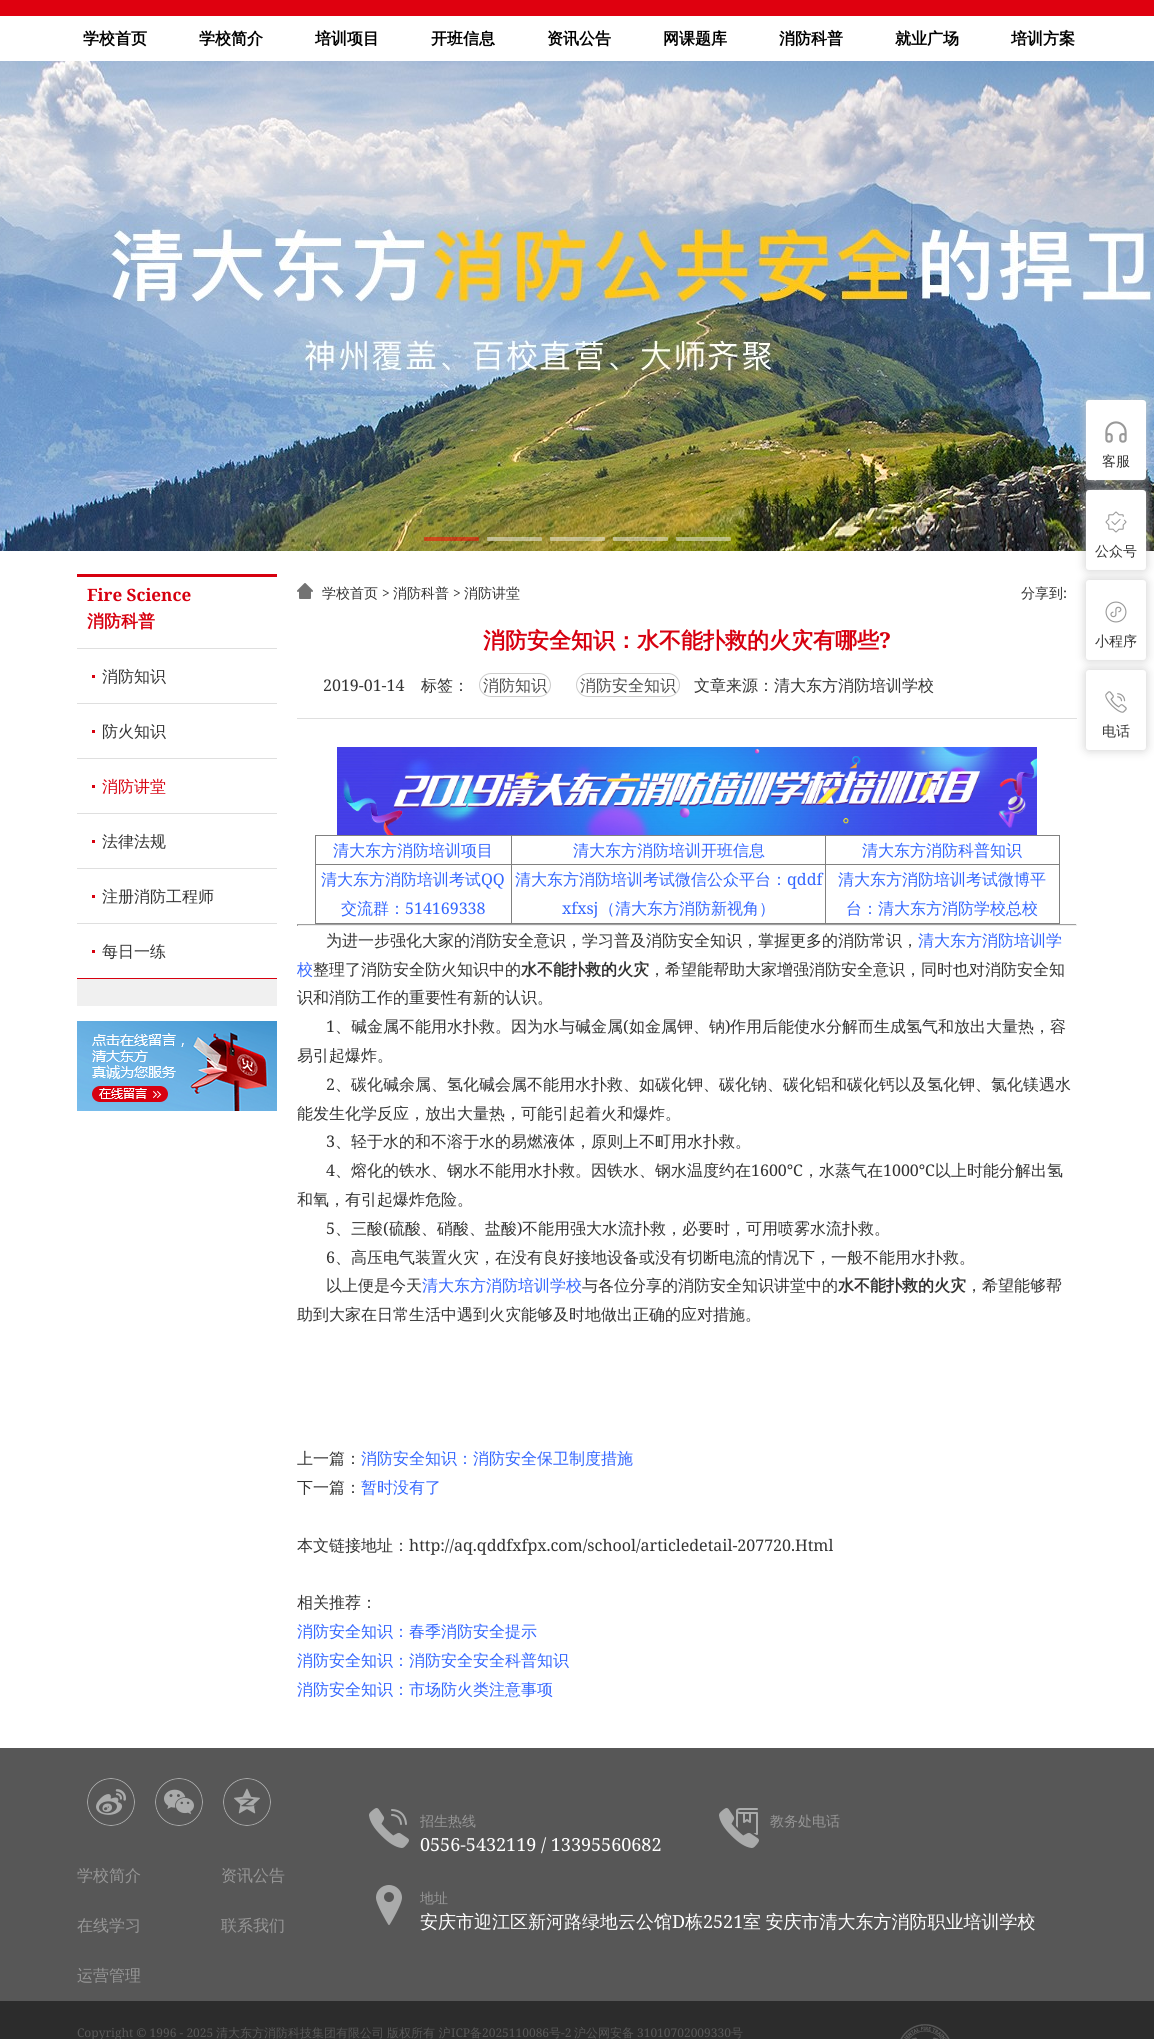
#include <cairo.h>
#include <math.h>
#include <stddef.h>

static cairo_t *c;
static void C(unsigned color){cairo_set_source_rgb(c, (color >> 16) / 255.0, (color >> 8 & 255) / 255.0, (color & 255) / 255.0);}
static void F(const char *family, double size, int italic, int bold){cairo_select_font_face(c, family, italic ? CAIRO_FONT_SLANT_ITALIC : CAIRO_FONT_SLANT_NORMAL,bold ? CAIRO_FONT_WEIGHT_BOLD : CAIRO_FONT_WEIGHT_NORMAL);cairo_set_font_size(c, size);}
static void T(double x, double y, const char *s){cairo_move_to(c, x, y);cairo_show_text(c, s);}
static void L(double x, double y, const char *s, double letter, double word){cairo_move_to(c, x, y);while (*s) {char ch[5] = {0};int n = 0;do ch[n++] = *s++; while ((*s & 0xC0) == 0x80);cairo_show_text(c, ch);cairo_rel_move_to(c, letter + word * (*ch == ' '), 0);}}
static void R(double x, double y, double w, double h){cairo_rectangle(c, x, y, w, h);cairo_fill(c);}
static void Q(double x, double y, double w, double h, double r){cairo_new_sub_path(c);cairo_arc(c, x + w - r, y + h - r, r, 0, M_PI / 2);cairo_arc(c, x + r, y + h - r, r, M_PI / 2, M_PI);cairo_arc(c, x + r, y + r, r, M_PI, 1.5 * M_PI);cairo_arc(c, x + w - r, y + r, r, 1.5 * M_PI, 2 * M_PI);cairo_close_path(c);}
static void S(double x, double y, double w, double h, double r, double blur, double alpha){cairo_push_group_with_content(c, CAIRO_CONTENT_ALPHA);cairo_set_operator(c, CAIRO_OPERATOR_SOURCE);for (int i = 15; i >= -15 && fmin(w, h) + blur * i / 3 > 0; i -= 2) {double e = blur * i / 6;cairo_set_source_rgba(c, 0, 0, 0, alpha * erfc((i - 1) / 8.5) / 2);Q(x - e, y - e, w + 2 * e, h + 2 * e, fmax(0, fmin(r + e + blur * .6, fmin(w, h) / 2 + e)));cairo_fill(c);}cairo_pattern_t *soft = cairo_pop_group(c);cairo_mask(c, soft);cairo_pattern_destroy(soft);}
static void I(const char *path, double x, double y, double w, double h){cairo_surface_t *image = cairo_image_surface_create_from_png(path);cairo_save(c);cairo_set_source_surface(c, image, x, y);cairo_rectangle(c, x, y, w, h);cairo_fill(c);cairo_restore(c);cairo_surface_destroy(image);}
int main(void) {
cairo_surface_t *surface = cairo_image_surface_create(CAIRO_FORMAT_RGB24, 1154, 2039);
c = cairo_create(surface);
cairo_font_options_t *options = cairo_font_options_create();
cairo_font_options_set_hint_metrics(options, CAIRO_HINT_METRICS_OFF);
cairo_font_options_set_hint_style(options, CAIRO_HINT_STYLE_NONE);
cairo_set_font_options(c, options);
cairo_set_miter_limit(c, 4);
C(0xffffff);
cairo_paint(c);
C(0xdf000f);
R(0,0,1154,16);
F("WenQuanYi Zen Hei",16,0,1);
C(0x000000);
T(83,44,"学校首页");
T(199,44,"学校简介");
T(315,44,"培训项目");
T(431,44,"开班信息");
T(547,44,"资讯公告");
T(663,44,"网课题库");
T(779,44,"消防科普");
T(895,44,"就业广场");
T(1011,44,"培训方案");
I("1.png",0,61,1154,490);
cairo_set_source_rgba(c,1,0,0,0.5);
cairo_new_path(c);
cairo_move_to(c,430,537);
cairo_line_to(c,475,537);
cairo_curve_to(c,477,537,479,536,479,539);
cairo_curve_to(c,479,541,479,541,477,541);
cairo_line_to(c,426,541);
cairo_curve_to(c,424,541,424,541,424,539);
cairo_line_to(c,424,537);
cairo_close_path(c);
cairo_fill(c);
cairo_set_source_rgba(c,0.949,0.949,0.949,0.5);
cairo_new_path(c);
cairo_move_to(c,492,537);
cairo_line_to(c,538,537);
cairo_curve_to(c,540,537,542,536,542,539);
cairo_curve_to(c,542,541,542,541,540,541);
cairo_line_to(c,489,541);
cairo_curve_to(c,487,541,487,541,487,539);
cairo_line_to(c,487,537);
cairo_close_path(c);
cairo_fill(c);
cairo_new_path(c);
cairo_move_to(c,556,537);
cairo_line_to(c,601,537);
cairo_curve_to(c,603,537,605,536,605,539);
cairo_curve_to(c,605,541,605,541,603,541);
cairo_line_to(c,552,541);
cairo_curve_to(c,550,541,550,541,550,539);
cairo_line_to(c,550,537);
cairo_close_path(c);
cairo_fill(c);
cairo_new_path(c);
cairo_move_to(c,618,537);
cairo_line_to(c,664,537);
cairo_curve_to(c,666,537,668,536,668,539);
cairo_curve_to(c,668,541,668,541,666,541);
cairo_line_to(c,615,541);
cairo_curve_to(c,613,541,613,541,613,539);
cairo_line_to(c,613,537);
cairo_close_path(c);
cairo_fill(c);
cairo_new_path(c);
cairo_move_to(c,682,537);
cairo_line_to(c,727,537);
cairo_curve_to(c,729,537,731,536,731,539);
cairo_curve_to(c,731,541,731,541,729,541);
cairo_line_to(c,678,541);
cairo_curve_to(c,676,541,676,541,676,539);
cairo_line_to(c,676,537);
cairo_close_path(c);
cairo_fill(c);
C(0xd7000f);
R(77,574,200,3);
F("Noto Serif",17,0,1);
T(87,601,"Fire Science");
F("WenQuanYi Zen Hei",17,0,1);
T(87,627,"消防科普");
R(92,675,3,3);
C(0xdfdfdf);
R(77,648,200,1);
F("WenQuanYi Zen Hei Medium",16,0,0);
C(0x333333);
T(102,682,"消防知识");
C(0xd7000f);
R(92,730,3,3);
C(0xdfdfdf);
R(77,703,200,1);
C(0x333333);
T(102,737,"防火知识");
C(0xd7000f);
R(92,785,3,3);
C(0xdfdfdf);
R(77,758,200,1);
C(0xd7000f);
T(102,792,"消防讲堂");
R(92,840,3,3);
C(0xdfdfdf);
R(77,813,200,1);
C(0x333333);
T(102,847,"法律法规");
C(0xd7000f);
R(92,895,3,3);
C(0xdfdfdf);
R(77,868,200,1);
C(0x333333);
T(102,902,"注册消防工程师");
C(0xd7000f);
R(92,950,3,3);
C(0xdfdfdf);
R(77,923,200,1);
C(0x333333);
T(102,957,"每日一练");
C(0xf0f0f0);
R(77,979,200,27);
C(0xd7000f);
R(77,978,200,1);
I("2.png",77,1021,200,90);
I("3.png",297,583,16,16);
F("WenQuanYi Zen Hei Medium",14,0,0);
C(0x333333);
T(322,598,"学校首页");
F("Noto Serif",14,0,0);
T(382,598,">");
F("WenQuanYi Zen Hei Medium",14,0,0);
T(393,598,"消防科普");
F("Noto Serif",14,0,0);
T(453,598,">");
F("WenQuanYi Zen Hei Medium",14,0,0);
T(464,598,"消防讲堂");
T(1021,598,"分享到");
F("Noto Serif",14,0,0);
T(1063,598,":");
C(0xdfdfdf);
R(297,718,780,1);
F("WenQuanYi Zen Hei",22,0,1);
C(0xd7000f);
T(483,648,"消防安全知识：水不能扑救的火灾有哪些");
F("Noto Serif",22,0,1);
T(879,648,"?");
F("Noto Serif",16,0,0);
C(0x333333);
T(323,691,"2019-01-14");
F("WenQuanYi Zen Hei Medium",16,0,0);
T(421,691,"标签：");
Q(479.5,673.5,71,23,11.5);
C(0xcccccc);
cairo_set_line_width(c,1);
cairo_stroke(c);
C(0x4d4d4d);
T(483,691,"消防知识");
Q(576.5,673.5,103,23,11.5);
C(0xcccccc);
cairo_stroke(c);
C(0x4d4d4d);
T(580,691,"消防安全知识");
C(0x333333);
T(694,691,"文章来源：清大东方消防培训学校");
I("4.png",337,747,700,88);
C(0x808080);
R(315,835,745,1);
R(1059,835,1,89);
R(315,923,745,1);
R(315,835,1,89);
C(0x3366ff);
T(333,856,"清大东方消防培训项目");
C(0x808080);
R(825,864,235,1);
R(825,864,1,60);
R(511,864,315,1);
R(511,864,1,60);
R(315,864,197,1);
R(511,835,1,30);
C(0x3366ff);
T(573,856,"清大东方消防培训开班信息");
C(0x808080);
R(825,835,1,30);
C(0x3366ff);
T(862,856,"清大东方消防科普知识");
T(321,885,"清大东方消防培训考试");
F("Noto Serif",16,0,0);
T(481,885,"QQ");
F("WenQuanYi Zen Hei Medium",16,0,0);
T(341,914,"交流群：");
F("Noto Serif",16,0,0);
T(405,914,"514169338");
F("WenQuanYi Zen Hei Medium",16,0,0);
T(515,885,"清大东方消防培训考试微信公众平台：");
F("Noto Serif",16,0,0);
T(787,885,"qddf");
T(562,914,"xfxsj");
F("WenQuanYi Zen Hei Medium",16,0,0);
T(599,914,"（清大东方消防新视角）");
T(838,885,"清大东方消防培训考试微博平");
T(846,914,"台：清大东方消防学校总校");
C(0x9f9f9f);
R(297,924,780,1);
C(0xeeeeee);
R(1076,924,1,2);
R(297,925,780,1);
C(0x9f9f9f);
R(297,924,1,2);
C(0x333333);
T(326,946,"为进一步强化大家的消防安全意识，学习普及消防安全知识，掌握更多的消防常识，");
C(0x3366ff);
T(918,946,"清大东方消防培训学");
T(297,975,"校");
C(0x333333);
T(313,975,"整理了消防安全防火知识中的");
F("WenQuanYi Zen Hei",16,0,1);
T(521,975,"水不能扑救的火灾");
F("WenQuanYi Zen Hei Medium",16,0,0);
T(649,975,"，希望能帮助大家增强消防安全意识，同时也对消防安全知");
T(297,1003,"识和消防工作的重要性有新的认识。");
F("Noto Serif",16,0,0);
T(326,1032,"1");
F("WenQuanYi Zen Hei Medium",16,0,0);
T(335,1032,"、碱金属不能用水扑救。因为水与碱金属");
F("Noto Serif",16,0,0);
T(623,1032,"(");
F("WenQuanYi Zen Hei Medium",16,0,0);
T(629,1032,"如金属钾、钠");
F("Noto Serif",16,0,0);
T(725,1032,")");
F("WenQuanYi Zen Hei Medium",16,0,0);
T(730,1032,"作用后能使水分解而生成氢气和放出大量热，容");
T(297,1061,"易引起爆炸。");
F("Noto Serif",16,0,0);
T(326,1090,"2");
F("WenQuanYi Zen Hei Medium",16,0,0);
T(335,1090,"、碳化碱余属、氢化碱会属不能用水扑救、如碳化钾、碳化钠、碳化铝和碳化钙以及氢化钾、氯化镁遇水");
T(297,1119,"能发生化学反应，放出大量热，可能引起着火和爆炸。");
F("Noto Serif",16,0,0);
T(326,1147,"3");
F("WenQuanYi Zen Hei Medium",16,0,0);
T(335,1147,"、轻于水的和不溶于水的易燃液体，原则上不町用水扑救。");
F("Noto Serif",16,0,0);
T(326,1176,"4");
F("WenQuanYi Zen Hei Medium",16,0,0);
T(335,1176,"、熔化的铁水、钢水不能用水扑救。因铁水、钢水温度约在");
F("Noto Serif",16,0,0);
T(751,1176,"1600℃");
F("WenQuanYi Zen Hei Medium",16,0,0);
T(803,1176,"，水蒸气在");
F("Noto Serif",16,0,0);
T(883,1176,"1000℃");
F("WenQuanYi Zen Hei Medium",16,0,0);
T(935,1176,"以上时能分解出氢");
T(297,1205,"和氧，有引起爆炸危险。");
F("Noto Serif",16,0,0);
T(326,1234,"5");
F("WenQuanYi Zen Hei Medium",16,0,0);
T(335,1234,"、三酸");
F("Noto Serif",16,0,0);
T(383,1234,"(");
F("WenQuanYi Zen Hei Medium",16,0,0);
T(389,1234,"硫酸、硝酸、盐酸");
F("Noto Serif",16,0,0);
T(517,1234,")");
F("WenQuanYi Zen Hei Medium",16,0,0);
T(522,1234,"不能用强大水流扑救，必要时，可用喷雾水流扑救。");
F("Noto Serif",16,0,0);
T(326,1263,"6");
F("WenQuanYi Zen Hei Medium",16,0,0);
T(335,1263,"、高压电气装置火灾，在没有良好接地设备或没有切断电流的情况下，一般不能用水扑救。");
T(326,1291,"以上便是今天");
C(0x3366ff);
T(422,1291,"清大东方消防培训学校");
C(0x333333);
T(582,1291,"与各位分享的消防安全知识讲堂中的");
F("WenQuanYi Zen Hei",16,0,1);
T(838,1291,"水不能扑救的火灾");
F("WenQuanYi Zen Hei Medium",16,0,0);
T(966,1291,"，希望能够帮");
T(297,1320,"助到大家在日常生活中遇到火灾能够及时地做出正确的应对措施。");
T(297,1464,"上一篇：");
C(0x3366ff);
T(361,1464,"消防安全知识：消防安全保卫制度措施");
C(0x333333);
T(297,1493,"下一篇：");
C(0x3366ff);
T(361,1493,"暂时没有了");
C(0x333333);
T(297,1551,"本文链接地址：");
F("Noto Serif",16,0,0);
T(409,1551,"http://aq.qddfxfpx.com/school/articledetail-207720.Html");
F("WenQuanYi Zen Hei Medium",16,0,0);
T(297,1608,"相关推荐：");
C(0x3366ff);
T(297,1637,"消防安全知识：春季消防安全提示");
T(297,1666,"消防安全知识：消防安全安全科普知识");
T(297,1695,"消防安全知识：市场防火类注意事项");
C(0x575757);
R(0,1748,1154,253);
I("5.png",87,1778,48,48);
I("6.png",155,1778,48,48);
I("7.png",223,1778,48,48);
C(0x969696);
T(77,1881,"学校简介");
T(221,1881,"资讯公告");
T(77,1931,"在线学习");
T(221,1931,"联系我们");
T(77,1981,"运营管理");
I("8.png",369,1808,40,40);
F("WenQuanYi Zen Hei Medium",14,0,0);
T(420,1826,"招生热线");
F("Noto Serif",18,0,0);
C(0xffffff);
T(420,1851,"0556-5432119 / 13395560682");
I("9.png",719,1808,40,40);
F("WenQuanYi Zen Hei Medium",14,0,0);
C(0x969696);
T(770,1826,"教务处电话");
I("10.png",376,1885,26,40);
T(420,1903,"地址");
F("WenQuanYi Zen Hei Medium",18,0,0);
C(0xffffff);
T(420,1928,"安庆市迎江区新河路绿地云公馆");
F("Noto Serif",18,0,0);
T(672,1928,"D");
F("WenQuanYi Zen Hei Medium",18,0,0);
T(685,1928,"栋");
F("Noto Serif",18,0,0);
T(703,1928,"2521");
F("WenQuanYi Zen Hei Medium",18,0,0);
L(743,1928,"室 安庆市清大东方消防职业培训学校",0,-1);
C(0x2c2c2c);
R(0,2001,1154,38);
F("Noto Serif",12,0,0);
C(0x575757);
T(77,2037,"Copyright © 1996 - 2025");
F("WenQuanYi Zen Hei Medium",12,0,0);
T(216,2037,"清大东方消防科技集团有限公司");
T(387,2037,"版权所有 沪");
F("Noto Serif",12,0,0);
T(451,2037,"ICP");
F("WenQuanYi Zen Hei Medium",12,0,0);
T(470,2037,"备");
F("Noto Serif",12,0,0);
T(482,2037,"2025110086");
F("WenQuanYi Zen Hei Medium",12,0,0);
T(549,2037,"号");
F("Noto Serif",12,0,0);
T(561,2037,"-2");
F("WenQuanYi Zen Hei Medium",12,0,0);
T(574,2037,"沪公网安备");
F("Noto Serif",12,0,0);
T(637,2037,"31010702009330");
F("WenQuanYi Zen Hei Medium",12,0,0);
T(731,2037,"号");
I("11.png",900,2024,50,15);
C(0xcccccc);
S(1086,400,60,80,3,5,1);
C(0xffffff);
Q(1086,400,60,80,3);
cairo_fill(c);
I("12.png",1105,421,22,22);
F("WenQuanYi Zen Hei Medium",14,0,0);
C(0x333333);
T(1102,466,"客服");
C(0xcccccc);
S(1086,490,60,80,3,5,1);
C(0xffffff);
Q(1086,490,60,80,3);
cairo_fill(c);
I("13.png",1105,511,22,22);
C(0x333333);
T(1095,556,"公众号");
C(0xcccccc);
S(1086,580,60,80,3,5,1);
C(0xffffff);
Q(1086,580,60,80,3);
cairo_fill(c);
I("14.png",1105,601,22,22);
C(0x333333);
T(1095,646,"小程序");
C(0xcccccc);
S(1086,670,60,80,3,5,1);
C(0xffffff);
Q(1086,670,60,80,3);
cairo_fill(c);
I("15.png",1105,691,22,22);
C(0x333333);
T(1102,736,"电话");
cairo_surface_write_to_png(surface, "o.png");
cairo_font_options_destroy(options);
cairo_destroy(c);
cairo_surface_destroy(surface);
return 0;
}
